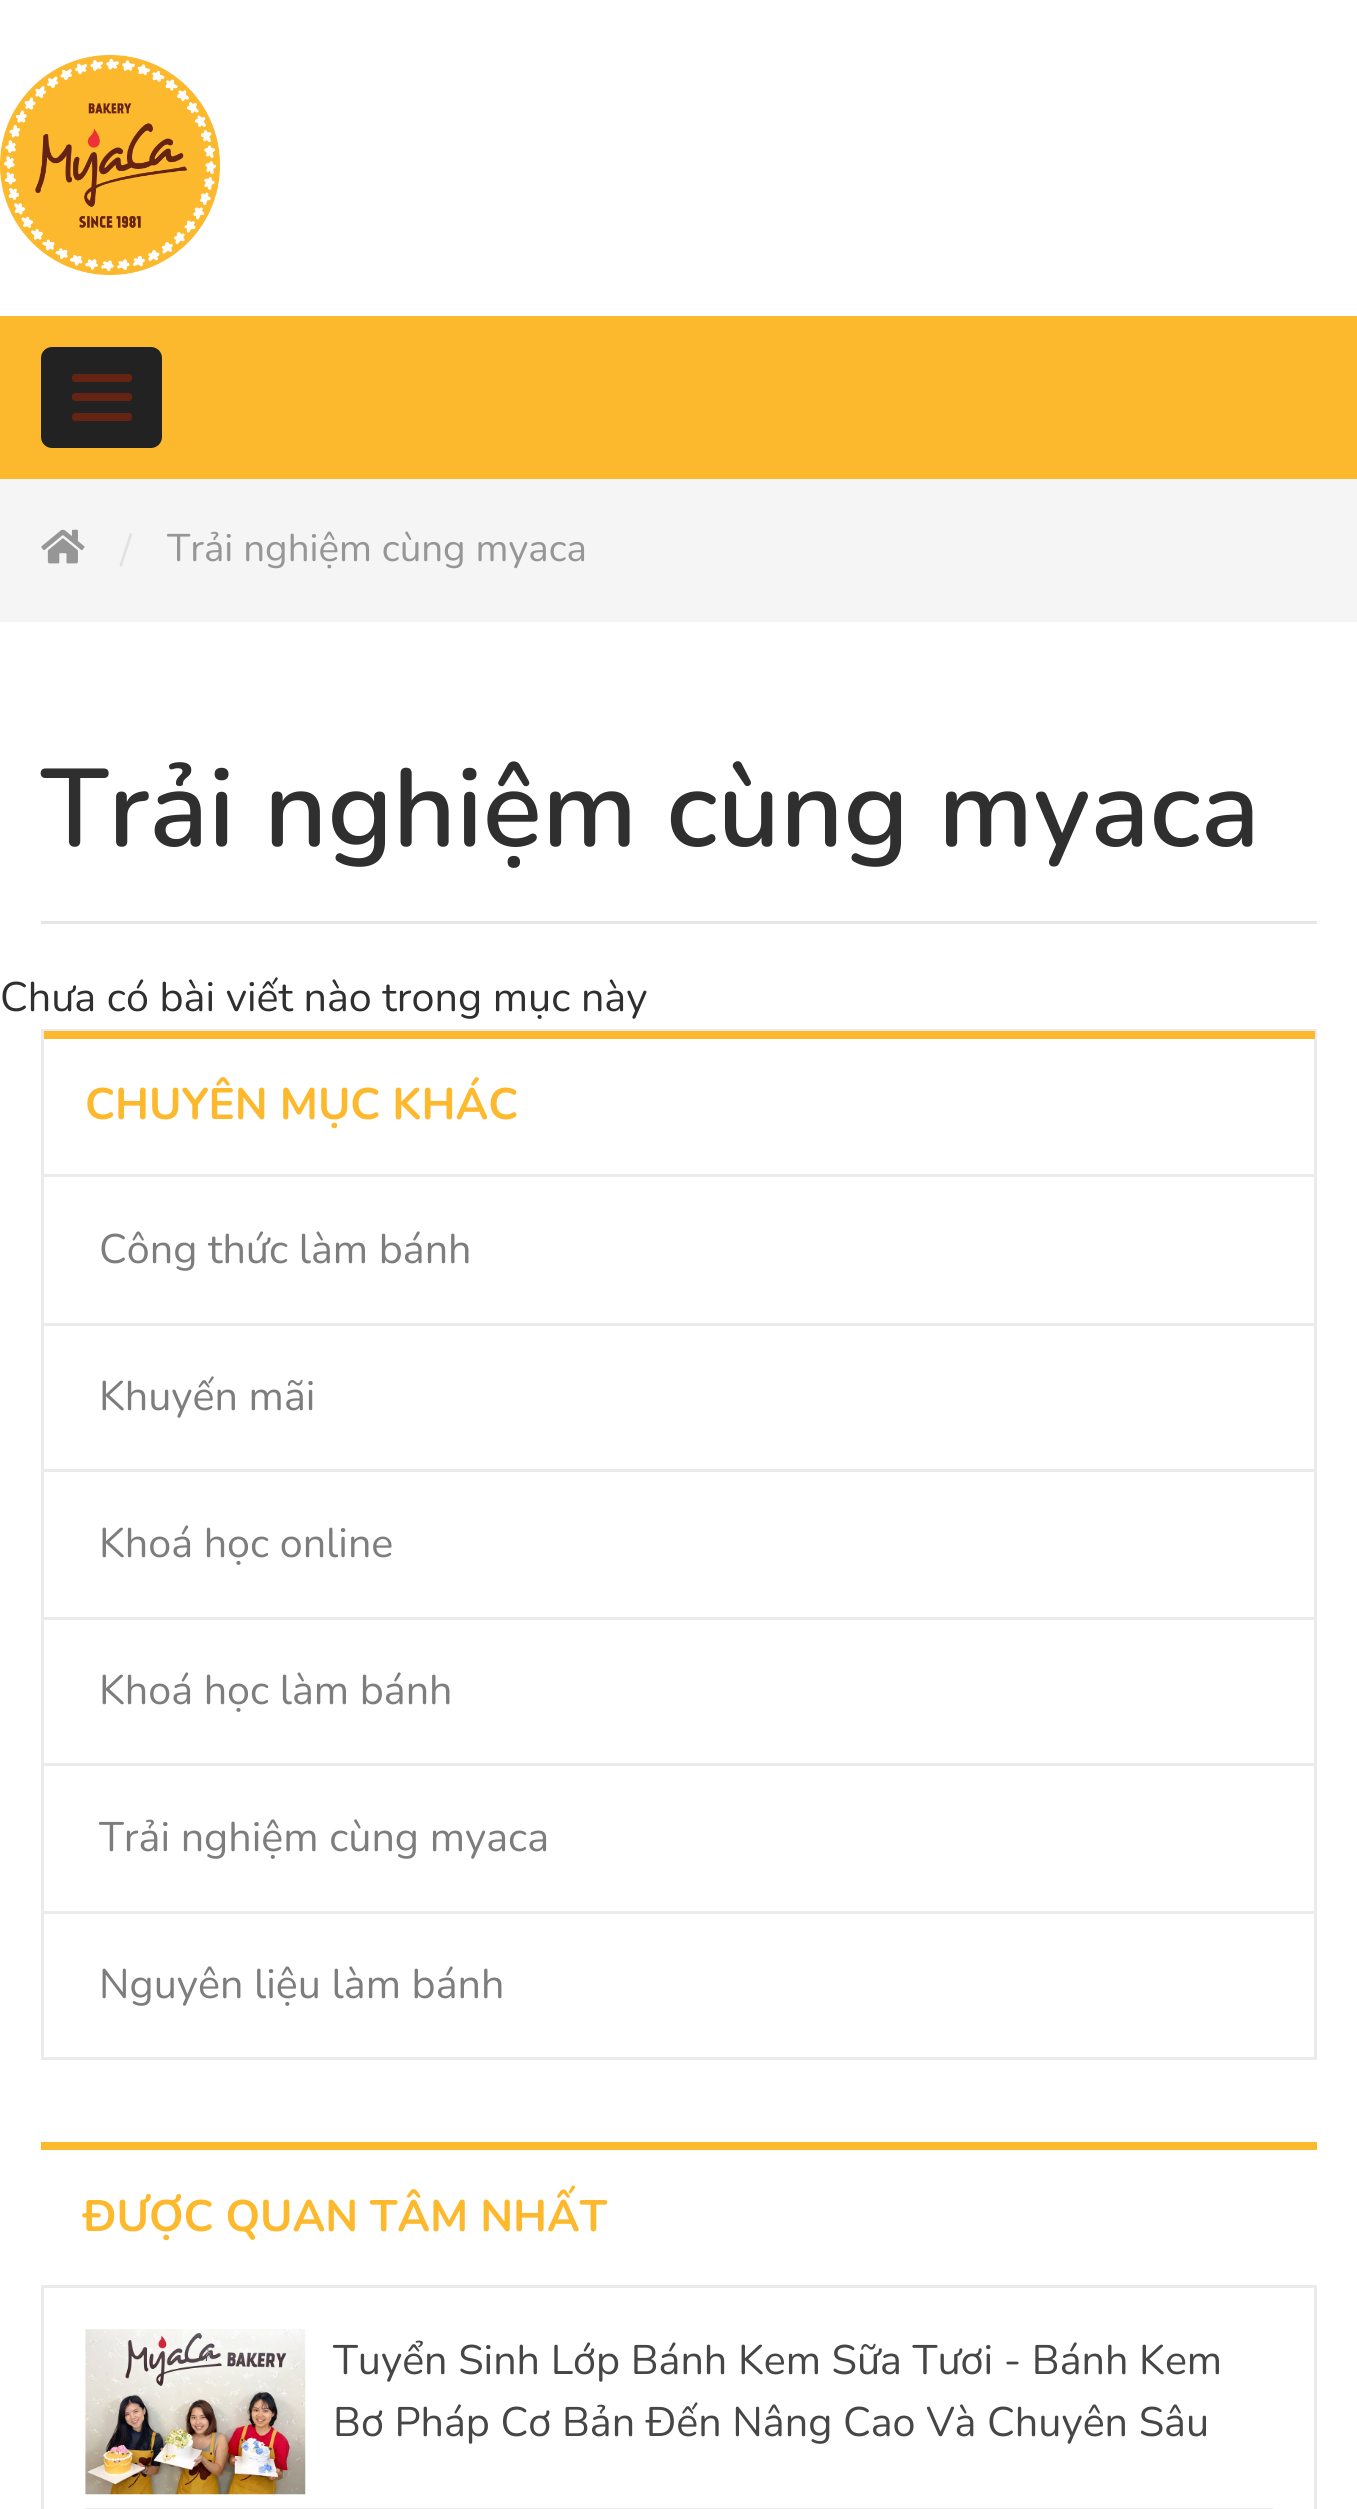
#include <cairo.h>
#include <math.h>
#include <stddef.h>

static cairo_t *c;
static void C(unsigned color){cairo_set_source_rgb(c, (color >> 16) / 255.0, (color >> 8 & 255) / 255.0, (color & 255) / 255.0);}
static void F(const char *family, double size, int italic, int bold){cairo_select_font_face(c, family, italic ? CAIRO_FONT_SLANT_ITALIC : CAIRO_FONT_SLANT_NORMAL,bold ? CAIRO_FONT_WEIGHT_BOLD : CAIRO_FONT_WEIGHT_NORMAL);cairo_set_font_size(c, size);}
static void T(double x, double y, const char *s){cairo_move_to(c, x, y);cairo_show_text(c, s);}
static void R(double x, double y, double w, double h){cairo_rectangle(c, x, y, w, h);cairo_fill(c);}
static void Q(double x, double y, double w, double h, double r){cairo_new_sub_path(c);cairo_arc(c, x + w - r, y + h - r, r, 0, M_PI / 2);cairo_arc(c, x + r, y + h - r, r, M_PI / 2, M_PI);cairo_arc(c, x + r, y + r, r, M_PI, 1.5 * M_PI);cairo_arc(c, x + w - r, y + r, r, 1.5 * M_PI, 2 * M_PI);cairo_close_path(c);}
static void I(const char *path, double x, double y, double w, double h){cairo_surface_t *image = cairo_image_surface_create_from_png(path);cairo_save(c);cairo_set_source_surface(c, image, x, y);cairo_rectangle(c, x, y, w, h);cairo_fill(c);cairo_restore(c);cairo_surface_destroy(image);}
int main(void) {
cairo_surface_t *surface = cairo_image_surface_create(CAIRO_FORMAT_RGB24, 1357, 2509);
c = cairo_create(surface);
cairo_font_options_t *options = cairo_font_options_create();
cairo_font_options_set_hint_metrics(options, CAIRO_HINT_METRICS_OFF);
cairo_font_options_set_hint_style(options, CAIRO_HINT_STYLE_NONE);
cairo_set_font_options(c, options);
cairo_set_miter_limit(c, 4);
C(0xffffff);
cairo_paint(c);
I("1.png",0,55,220,220);
C(0xfdb92e);
R(0,316,1357,163);
C(0x222222);
Q(41,347,121,101,11);
cairo_fill(c);
C(0x652313);
Q(72,374,60,8,3);
cairo_fill(c);
Q(72,393,60,8,3);
cairo_fill(c);
Q(72,413,60,8,3);
cairo_fill(c);
C(0xf5f5f5);
R(0,479,1357,143);
I("2.png",41,529,44,35);
F("Nunito",41.25,0,0);
C(0xe2e2e2);
T(120,564,"/");
F("Nunito",38.5,0,0);
C(0x969696);
T(167,561,"Trải nghiệm cùng myaca");
F("Nunito SemiBold",110,0,0);
C(0x2f2f2f);
T(41,846,"Trải nghiệm cùng myaca");
C(0xe6e6e6);
R(41,921,1276,3);
F("Nunito",41.25,0,0);
C(0x2f2f2f);
T(0,1011,"Chưa có bài viết nào trong mục này");
cairo_rectangle(c,42.5,1030.5,1273,1028);
C(0xebebeb);
cairo_set_line_width(c,3);
cairo_stroke(c);
C(0xfdb92e);
R(44,1031,1271,8);
F("Nunito",44,0,1);
T(85,1119,"CHUYÊN MỤC KHÁC");
C(0xebebeb);
R(44,1174,1271,3);
F("Nunito",41.25,0,0);
C(0x7d7d7d);
T(99,1263,"Công thức làm bánh");
C(0xebebeb);
R(44,1323,1271,3);
C(0x7d7d7d);
T(99,1410,"Khuyến mãi");
C(0xebebeb);
R(44,1469,1271,3);
C(0x7d7d7d);
T(99,1557,"Khoá học online");
C(0xebebeb);
R(44,1617,1271,3);
C(0x7d7d7d);
T(99,1704,"Khoá học làm bánh");
C(0xebebeb);
R(44,1763,1271,3);
C(0x7d7d7d);
T(99,1851,"Trải nghiệm cùng myaca");
C(0xebebeb);
R(44,1911,1271,3);
C(0x7d7d7d);
T(99,1998,"Nguyên liệu làm bánh");
C(0xfdb92e);
R(41,2142,1276,8);
F("Nunito",44,0,1);
T(83,2231,"ĐƯỢC QUAN TÂM NHẤT");
cairo_rectangle(c,42.5,2286.5,1273,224);
C(0xebebeb);
cairo_stroke(c);
C(0xeeeeee);
R(85,2508,1188,1);
I("3.png",85,2329,221,166);
F("Nunito",41.25,0,0);
C(0x464646);
T(333,2374,"Tuyển Sinh Lớp Bánh Kem Sữa Tươi - Bánh Kem");
T(333,2436,"Bơ Pháp Cơ Bản Đến Nâng Cao Và Chuyên Sâu");
cairo_surface_write_to_png(surface, "o.png");
cairo_font_options_destroy(options);
cairo_destroy(c);
cairo_surface_destroy(surface);
return 0;
}
